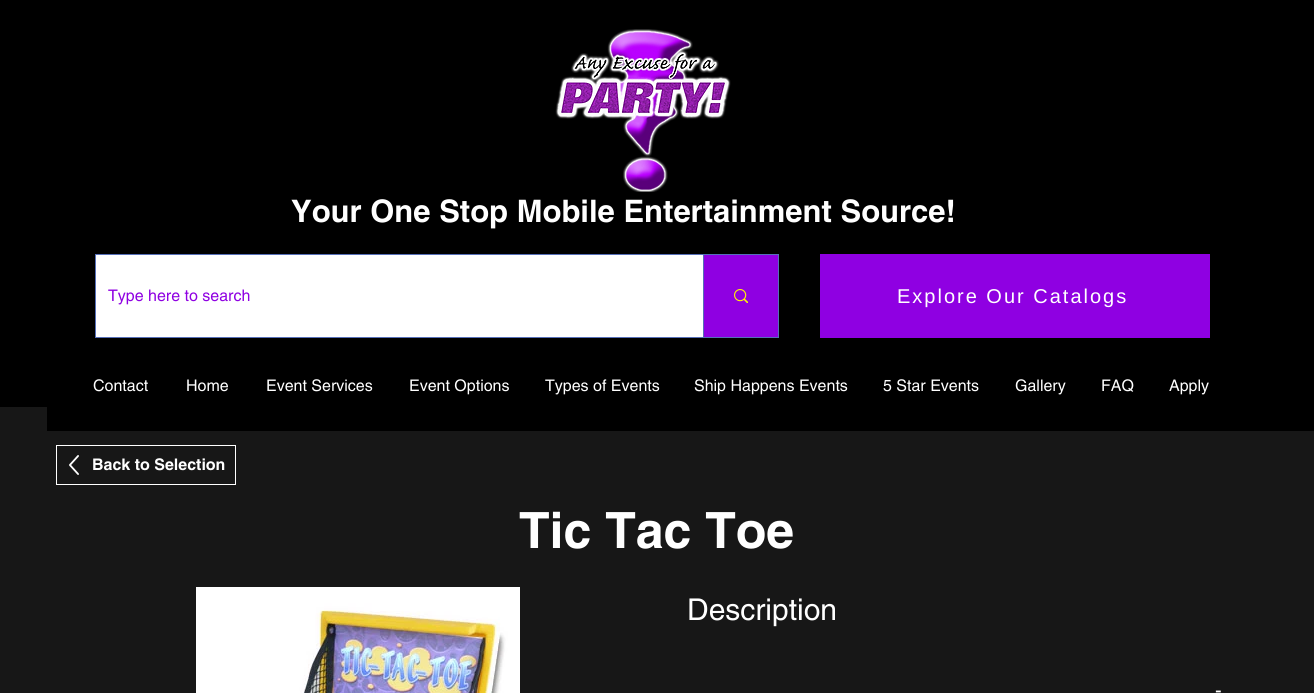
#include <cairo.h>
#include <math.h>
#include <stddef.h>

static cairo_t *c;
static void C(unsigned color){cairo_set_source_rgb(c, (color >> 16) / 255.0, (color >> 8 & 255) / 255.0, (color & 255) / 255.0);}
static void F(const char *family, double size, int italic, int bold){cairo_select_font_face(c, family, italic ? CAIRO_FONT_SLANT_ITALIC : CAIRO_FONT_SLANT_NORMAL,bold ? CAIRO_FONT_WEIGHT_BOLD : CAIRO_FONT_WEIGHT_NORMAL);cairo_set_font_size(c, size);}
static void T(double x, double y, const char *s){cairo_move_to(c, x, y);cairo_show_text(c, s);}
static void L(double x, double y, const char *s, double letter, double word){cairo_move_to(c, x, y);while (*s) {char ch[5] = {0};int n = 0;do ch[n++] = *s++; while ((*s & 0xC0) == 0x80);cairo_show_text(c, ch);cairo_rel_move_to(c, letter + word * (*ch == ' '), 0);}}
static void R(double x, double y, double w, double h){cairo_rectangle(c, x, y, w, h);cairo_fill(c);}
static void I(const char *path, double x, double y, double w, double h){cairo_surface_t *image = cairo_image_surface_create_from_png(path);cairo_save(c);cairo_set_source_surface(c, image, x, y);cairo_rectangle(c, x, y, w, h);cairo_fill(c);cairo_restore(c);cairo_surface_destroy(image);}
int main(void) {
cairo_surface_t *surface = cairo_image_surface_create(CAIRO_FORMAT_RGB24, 1314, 693);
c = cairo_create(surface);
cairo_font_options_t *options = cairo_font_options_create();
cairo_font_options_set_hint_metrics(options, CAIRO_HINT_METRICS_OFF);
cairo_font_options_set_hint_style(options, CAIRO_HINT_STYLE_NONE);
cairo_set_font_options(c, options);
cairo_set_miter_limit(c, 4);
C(0x171717);
cairo_paint(c);
C(0x000000);
R(0,0,1314,407);
I("1.png",555,29,176,163);
F("helvetica",31,0,1);
C(0xffffff);
T(291,222,"Your One Stop Mobile Entertainment Source!");
cairo_rectangle(c,95.5,254.5,683,83);
C(0x566fb8);
cairo_set_line_width(c,1);
cairo_stroke(c);
C(0xffffff);
R(96,255,607,82);
F("helvetica",16,0,0);
C(0x8f00e2);
T(108,301,"Type here to search");
R(704,255,74,82);
C(0x566fb8);
R(703,255,1,82);
I("2.png",734,289,14,14);
C(0x8f00e2);
R(820,254,390,84);
F("Liberation Sans",20,0,0);
C(0xffffff);
L(897,303,"Explore Our Catalogs",2,0);
F("helvetica",16,0,0);
T(93,391,"Contact");
T(186,391,"Home");
T(266,391,"Event Services");
T(409,391,"Event Options");
T(545,391,"Types of Events");
T(694,391,"Ship Happens Events");
T(883,391,"5 Star Events");
T(1015,391,"Gallery");
T(1101,391,"FAQ");
T(1169,391,"Apply");
C(0x000000);
R(47,407,1267,24);
I("3.png",69,455,10,20);
cairo_rectangle(c,56.5,445.5,179,39);
C(0xffffff);
cairo_stroke(c);
F("helvetica",16,0,1);
T(92,470,"Back to Selection");
F("helvetica",50,0,1);
T(519,548,"Tic Tac Toe");
I("4.png",196,587,324,106);
F("helvetica",30,0,0);
T(687,620,"Description");
F("helvetica",20,0,0);
T(1215,697,"-");
cairo_surface_write_to_png(surface, "o.png");
cairo_font_options_destroy(options);
cairo_destroy(c);
cairo_surface_destroy(surface);
return 0;
}
